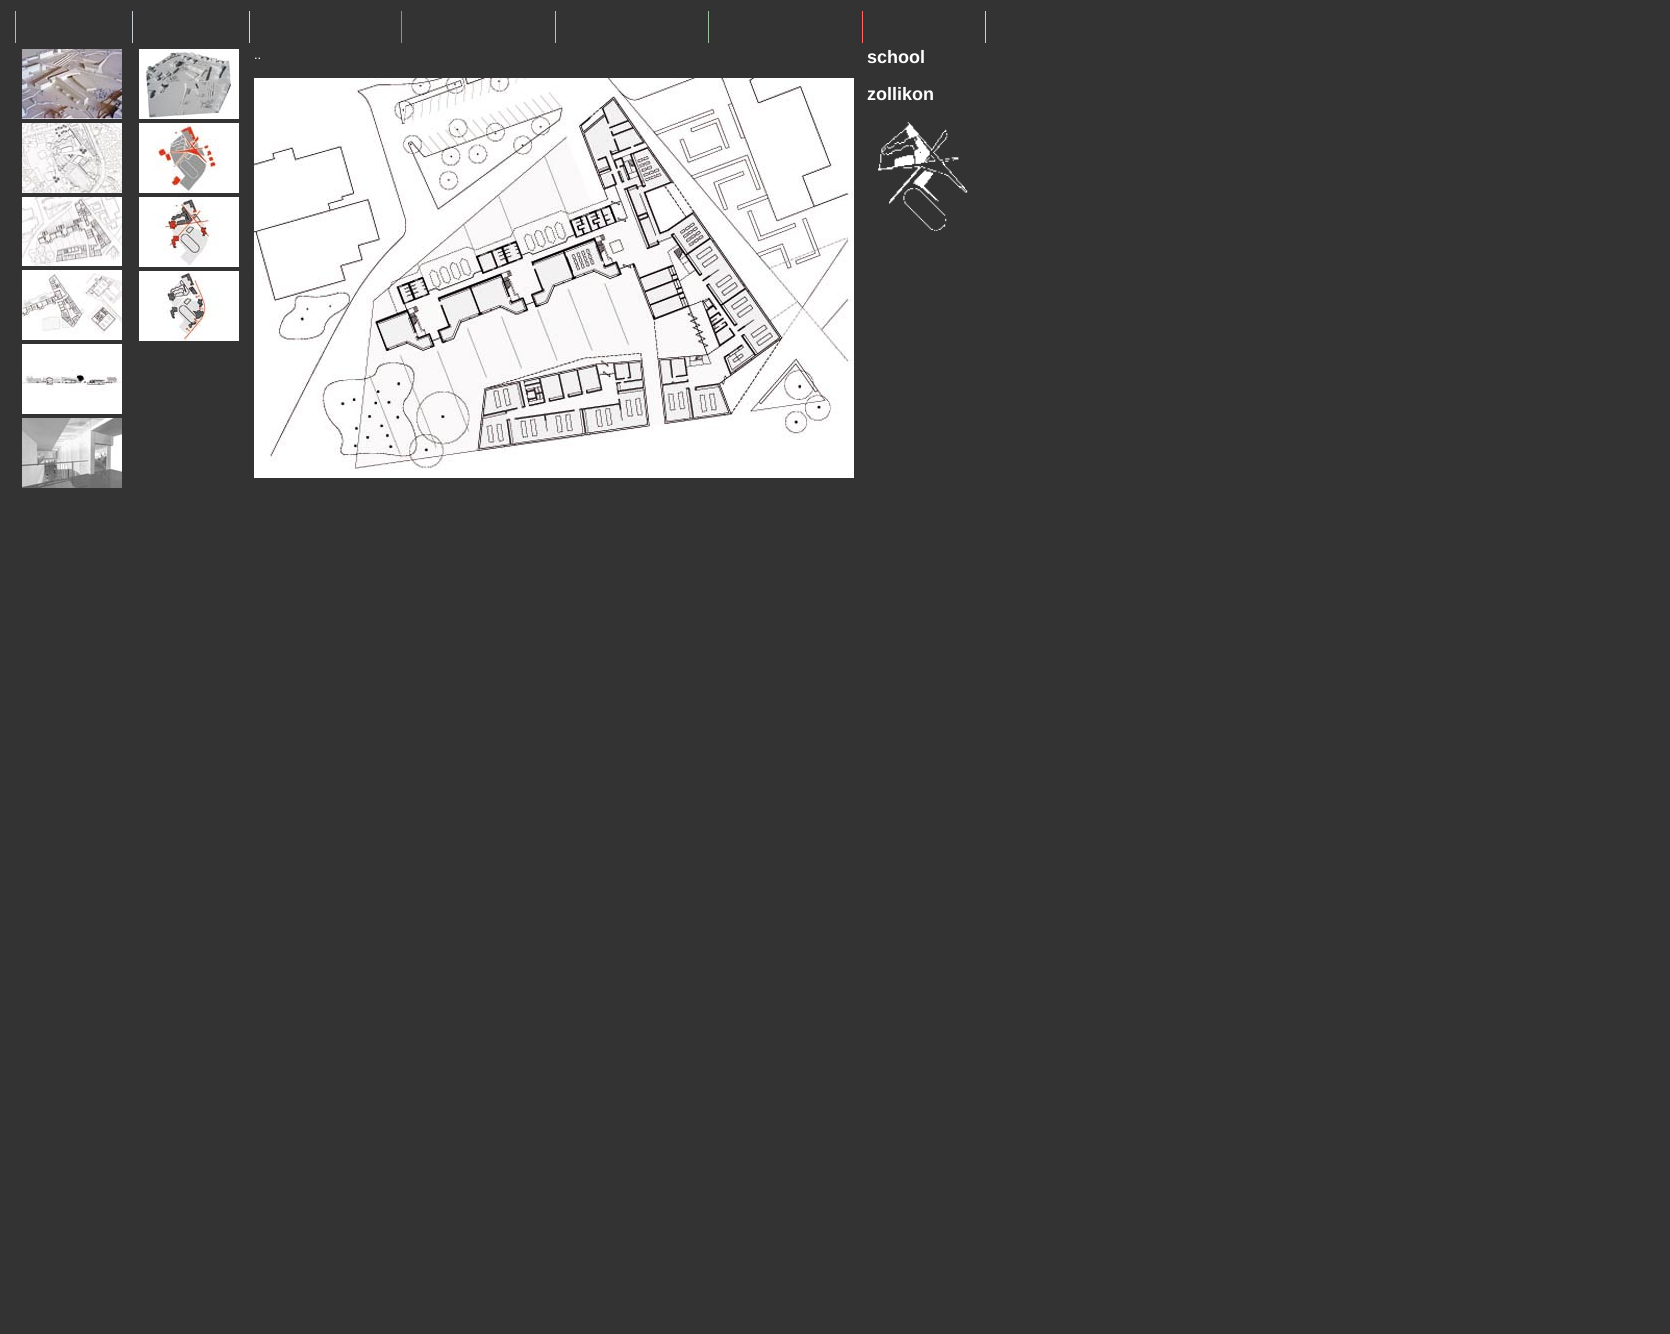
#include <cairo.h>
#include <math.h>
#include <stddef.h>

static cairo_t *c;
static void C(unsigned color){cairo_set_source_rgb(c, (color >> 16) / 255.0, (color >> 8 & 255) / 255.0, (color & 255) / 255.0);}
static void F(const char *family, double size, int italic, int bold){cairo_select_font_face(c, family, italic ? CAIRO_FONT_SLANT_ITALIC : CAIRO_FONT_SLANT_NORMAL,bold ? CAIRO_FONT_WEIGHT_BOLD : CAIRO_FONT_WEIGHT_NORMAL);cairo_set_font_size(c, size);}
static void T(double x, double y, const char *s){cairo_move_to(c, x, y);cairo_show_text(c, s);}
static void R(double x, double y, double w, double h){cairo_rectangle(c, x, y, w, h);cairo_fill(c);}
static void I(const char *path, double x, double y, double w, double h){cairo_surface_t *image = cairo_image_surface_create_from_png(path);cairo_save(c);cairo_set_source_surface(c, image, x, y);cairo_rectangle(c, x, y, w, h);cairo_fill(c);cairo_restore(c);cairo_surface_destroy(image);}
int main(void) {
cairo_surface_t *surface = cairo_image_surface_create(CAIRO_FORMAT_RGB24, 1670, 1334);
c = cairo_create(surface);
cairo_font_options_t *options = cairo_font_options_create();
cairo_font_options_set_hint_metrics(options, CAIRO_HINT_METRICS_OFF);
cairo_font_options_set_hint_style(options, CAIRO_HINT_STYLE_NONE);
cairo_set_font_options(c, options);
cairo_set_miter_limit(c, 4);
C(0x333333);
cairo_paint(c);
C(0xb6b6c2);
R(15,11,1,32);
I("1.png",132,11,1,32);
C(0x99ff99);
R(249,11,1,32);
C(0x9b8f7b);
R(401,11,1,32);
C(0xff99cc);
R(555,11,1,32);
C(0x99bf9f);
R(708,11,1,32);
C(0xff6666);
R(862,11,1,32);
C(0xffc588);
R(985,11,1,32);
I("2.png",22,49,100,70);
I("3.png",22,123,100,70);
I("4.png",22,197,100,69);
I("5.png",22,270,100,70);
I("6.png",22,344,100,70);
I("7.png",22,418,100,70);
I("8.png",139,49,100,70);
I("9.png",139,123,100,70);
I("10.png",139,197,100,70);
I("11.png",139,271,100,70);
F("Liberation Sans",13,0,0);
C(0xffffff);
T(254,59,"..");
I("12.png",254,78,600,400);
F("Liberation Sans",18,0,1);
T(867,63,"school");
T(867,100,"zollikon");
I("13.png",878,122,90,109);
cairo_surface_write_to_png(surface, "o.png");
cairo_font_options_destroy(options);
cairo_destroy(c);
cairo_surface_destroy(surface);
return 0;
}
